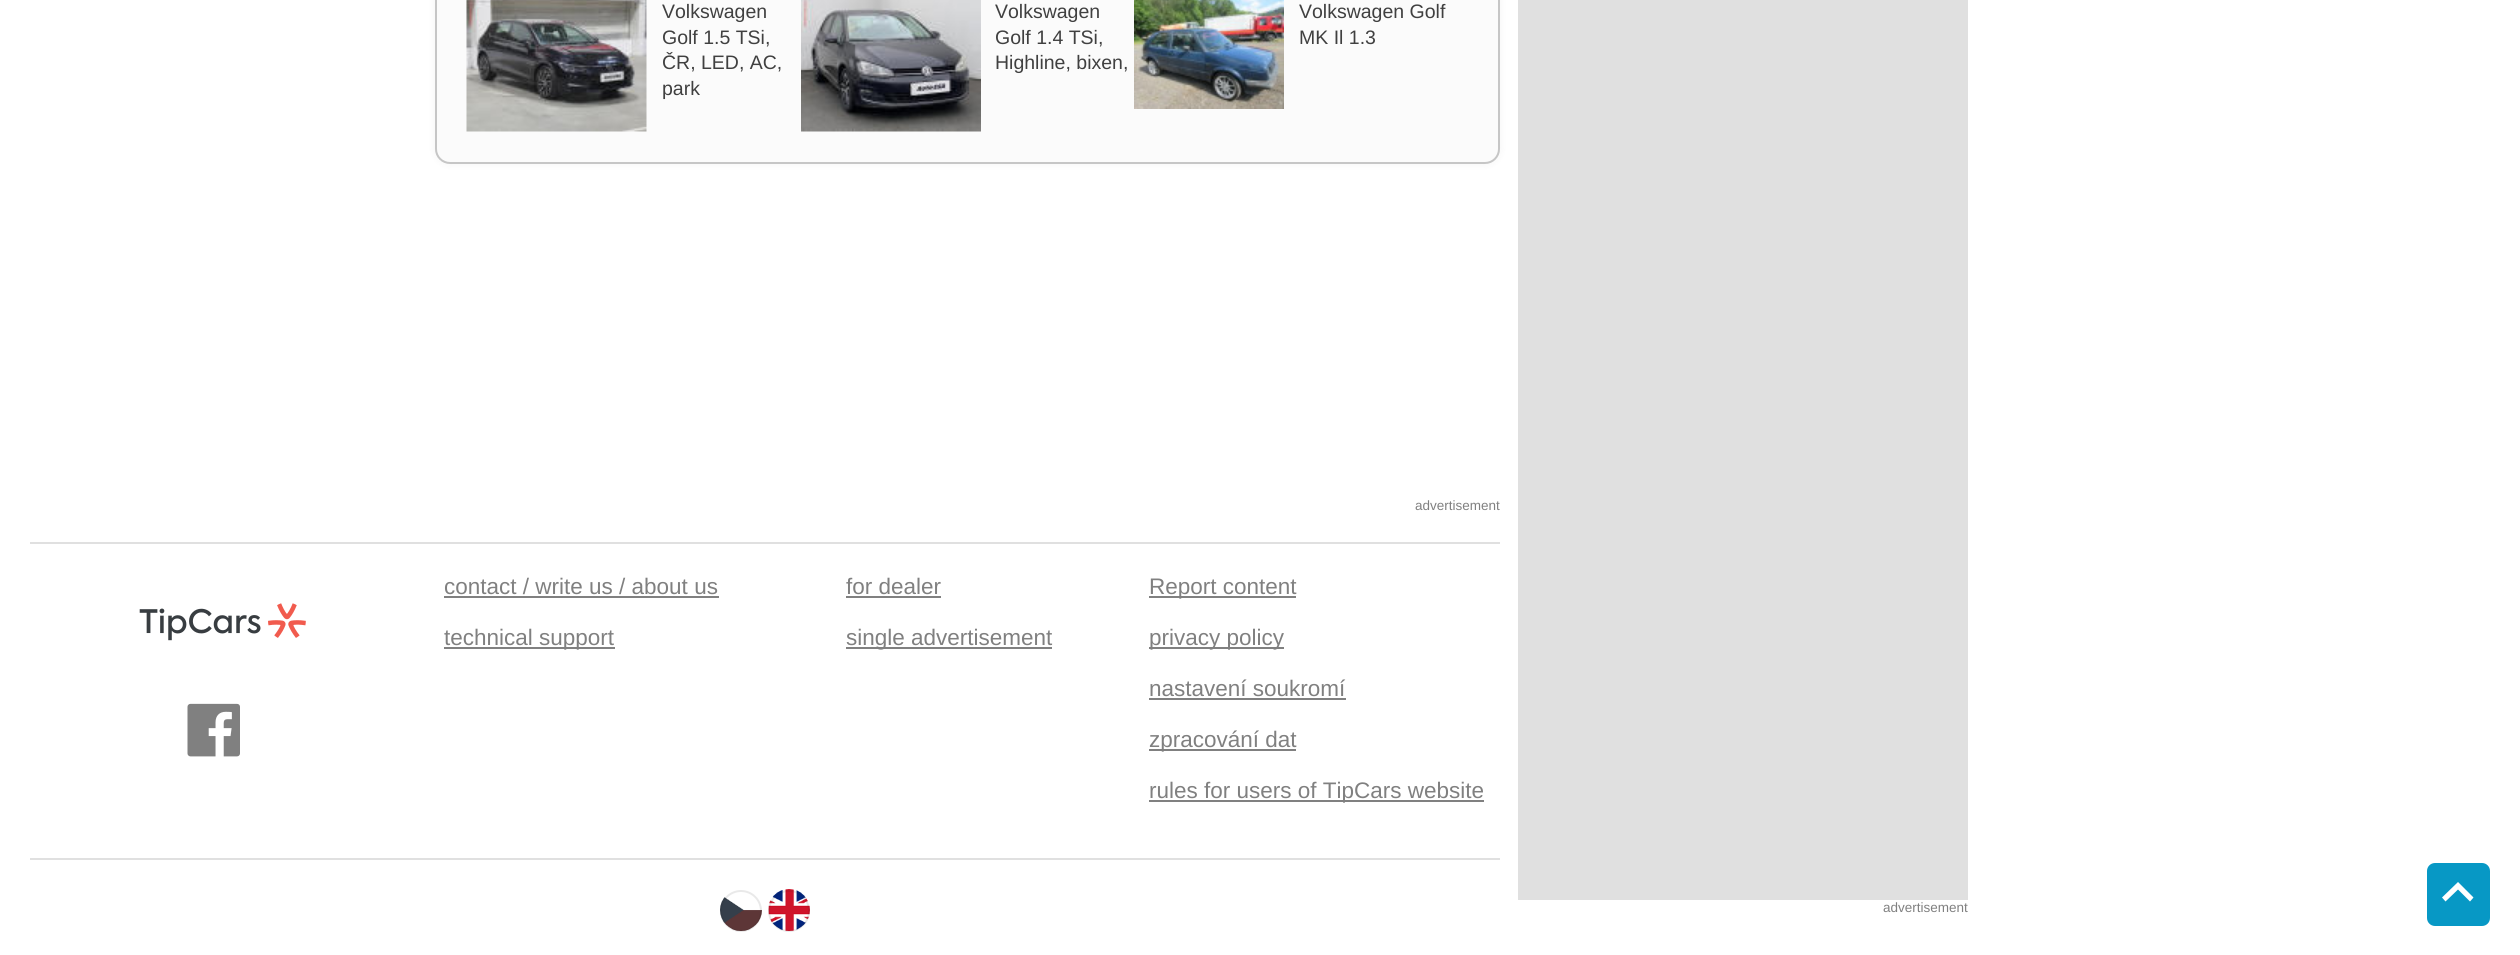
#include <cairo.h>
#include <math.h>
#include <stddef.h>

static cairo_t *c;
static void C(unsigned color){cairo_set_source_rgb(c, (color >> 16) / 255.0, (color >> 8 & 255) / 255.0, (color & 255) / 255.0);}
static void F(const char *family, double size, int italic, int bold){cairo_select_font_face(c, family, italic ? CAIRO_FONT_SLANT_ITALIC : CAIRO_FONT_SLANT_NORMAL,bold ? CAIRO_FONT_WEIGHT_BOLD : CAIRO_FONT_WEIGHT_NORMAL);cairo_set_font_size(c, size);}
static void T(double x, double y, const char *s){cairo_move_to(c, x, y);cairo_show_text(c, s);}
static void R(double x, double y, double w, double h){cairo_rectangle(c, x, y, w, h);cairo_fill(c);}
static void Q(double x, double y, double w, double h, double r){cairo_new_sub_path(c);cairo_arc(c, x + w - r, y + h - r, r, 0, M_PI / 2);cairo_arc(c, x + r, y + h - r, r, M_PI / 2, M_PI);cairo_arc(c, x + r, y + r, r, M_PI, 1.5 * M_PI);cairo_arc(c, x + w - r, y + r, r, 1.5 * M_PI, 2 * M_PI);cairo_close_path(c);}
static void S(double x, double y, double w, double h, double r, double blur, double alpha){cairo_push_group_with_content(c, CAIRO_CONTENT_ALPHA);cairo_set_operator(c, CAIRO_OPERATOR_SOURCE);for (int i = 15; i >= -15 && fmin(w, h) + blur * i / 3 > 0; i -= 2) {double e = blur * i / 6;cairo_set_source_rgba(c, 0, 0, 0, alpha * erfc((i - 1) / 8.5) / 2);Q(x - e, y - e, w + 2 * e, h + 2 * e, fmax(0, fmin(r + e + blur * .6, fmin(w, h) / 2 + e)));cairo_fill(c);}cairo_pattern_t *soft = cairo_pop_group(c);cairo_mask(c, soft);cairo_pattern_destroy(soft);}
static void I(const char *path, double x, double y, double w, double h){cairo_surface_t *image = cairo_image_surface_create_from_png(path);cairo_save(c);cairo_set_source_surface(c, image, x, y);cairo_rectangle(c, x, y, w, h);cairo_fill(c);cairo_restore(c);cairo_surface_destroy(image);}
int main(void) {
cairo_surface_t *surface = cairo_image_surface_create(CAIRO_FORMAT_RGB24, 2520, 955);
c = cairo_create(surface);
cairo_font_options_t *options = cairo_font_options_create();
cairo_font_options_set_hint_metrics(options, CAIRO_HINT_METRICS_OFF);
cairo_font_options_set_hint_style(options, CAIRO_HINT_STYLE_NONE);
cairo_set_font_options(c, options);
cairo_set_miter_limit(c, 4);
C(0xffffff);
cairo_paint(c);
C(0x000000);
S(435,-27,1065,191,15,4,.05);
C(0xfbfbfb);
Q(436,-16,1063,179,14);
cairo_fill_preserve(c);
C(0xc6c6c6);
cairo_stroke(c);
I("1.png",466,0,181,132);
F("Liberation Sans",19.5,0,0);
C(0x404040);
T(662,18,"Volkswagen");
T(662,44,"Golf 1.5 TSi,");
T(662,69,"ČR, LED, AC,");
T(662,95,"park");
I("2.png",801,0,180,132);
T(995,18,"Volkswagen");
T(995,44,"Golf 1.4 TSi,");
T(995,69,"Highline, bixen,");
I("3.png",1134,0,150,109);
T(1299,18,"Volkswagen Golf");
T(1299,44,"MK Il 1.3");
F("Liberation Sans",13.5,0,0);
C(0x808080);
T(1415,510,"advertisement");
C(0xe0e0e0);
R(1518,0,450,900);
C(0x808080);
T(1883,912,"advertisement");
C(0xe0e0e0);
R(30,542,1470,2);
I("4.png",139,603,167,38);
I("5.png",187,703,53,54);
F("Liberation Sans",22.5,0,0);
C(0x808080);
T(444,594,"contact / write us / about us");
R(444,596,275,2);
R(444,647,171,2);
T(444,645,"technical support");
T(846,594,"for dealer");
R(846,596,95,2);
R(846,647,206,2);
T(846,645,"single advertisement");
R(1149,596,147,2);
T(1149,594,"Report content");
R(1149,647,135,2);
T(1149,645,"privacy policy");
T(1149,696,"nastavení soukromí");
R(1149,698,197,2);
R(1149,749,147,2);
T(1149,747,"zpracování dat");
R(1149,800,335,2);
T(1149,798,"rules for users of TipCars website");
C(0xe0e0e0);
R(30,858,1470,2);
I("6.png",720,897,42,34);
cairo_arc(c,741,911,20,0,2 * M_PI);
cairo_set_source_rgba(c,0.125,0.125,0.125,0.1);
cairo_stroke(c);
I("7.png",768,889,42,42);
cairo_arc(c,789,911,20,0,2 * M_PI);
cairo_stroke(c);
C(0x0798c5);
Q(2427,863,63,63,8);
cairo_fill(c);
C(0xffffff);
cairo_new_path(c);
cairo_move_to(c,2445.5,901.5);
cairo_line_to(c,2442,897.5);
cairo_line_to(c,2458,882);
cairo_line_to(c,2473.5,897.5);
cairo_line_to(c,2470,901.5);
cairo_line_to(c,2458,889.5);
cairo_close_path(c);
cairo_fill(c);
cairo_surface_write_to_png(surface, "o.png");
cairo_font_options_destroy(options);
cairo_destroy(c);
cairo_surface_destroy(surface);
return 0;
}
